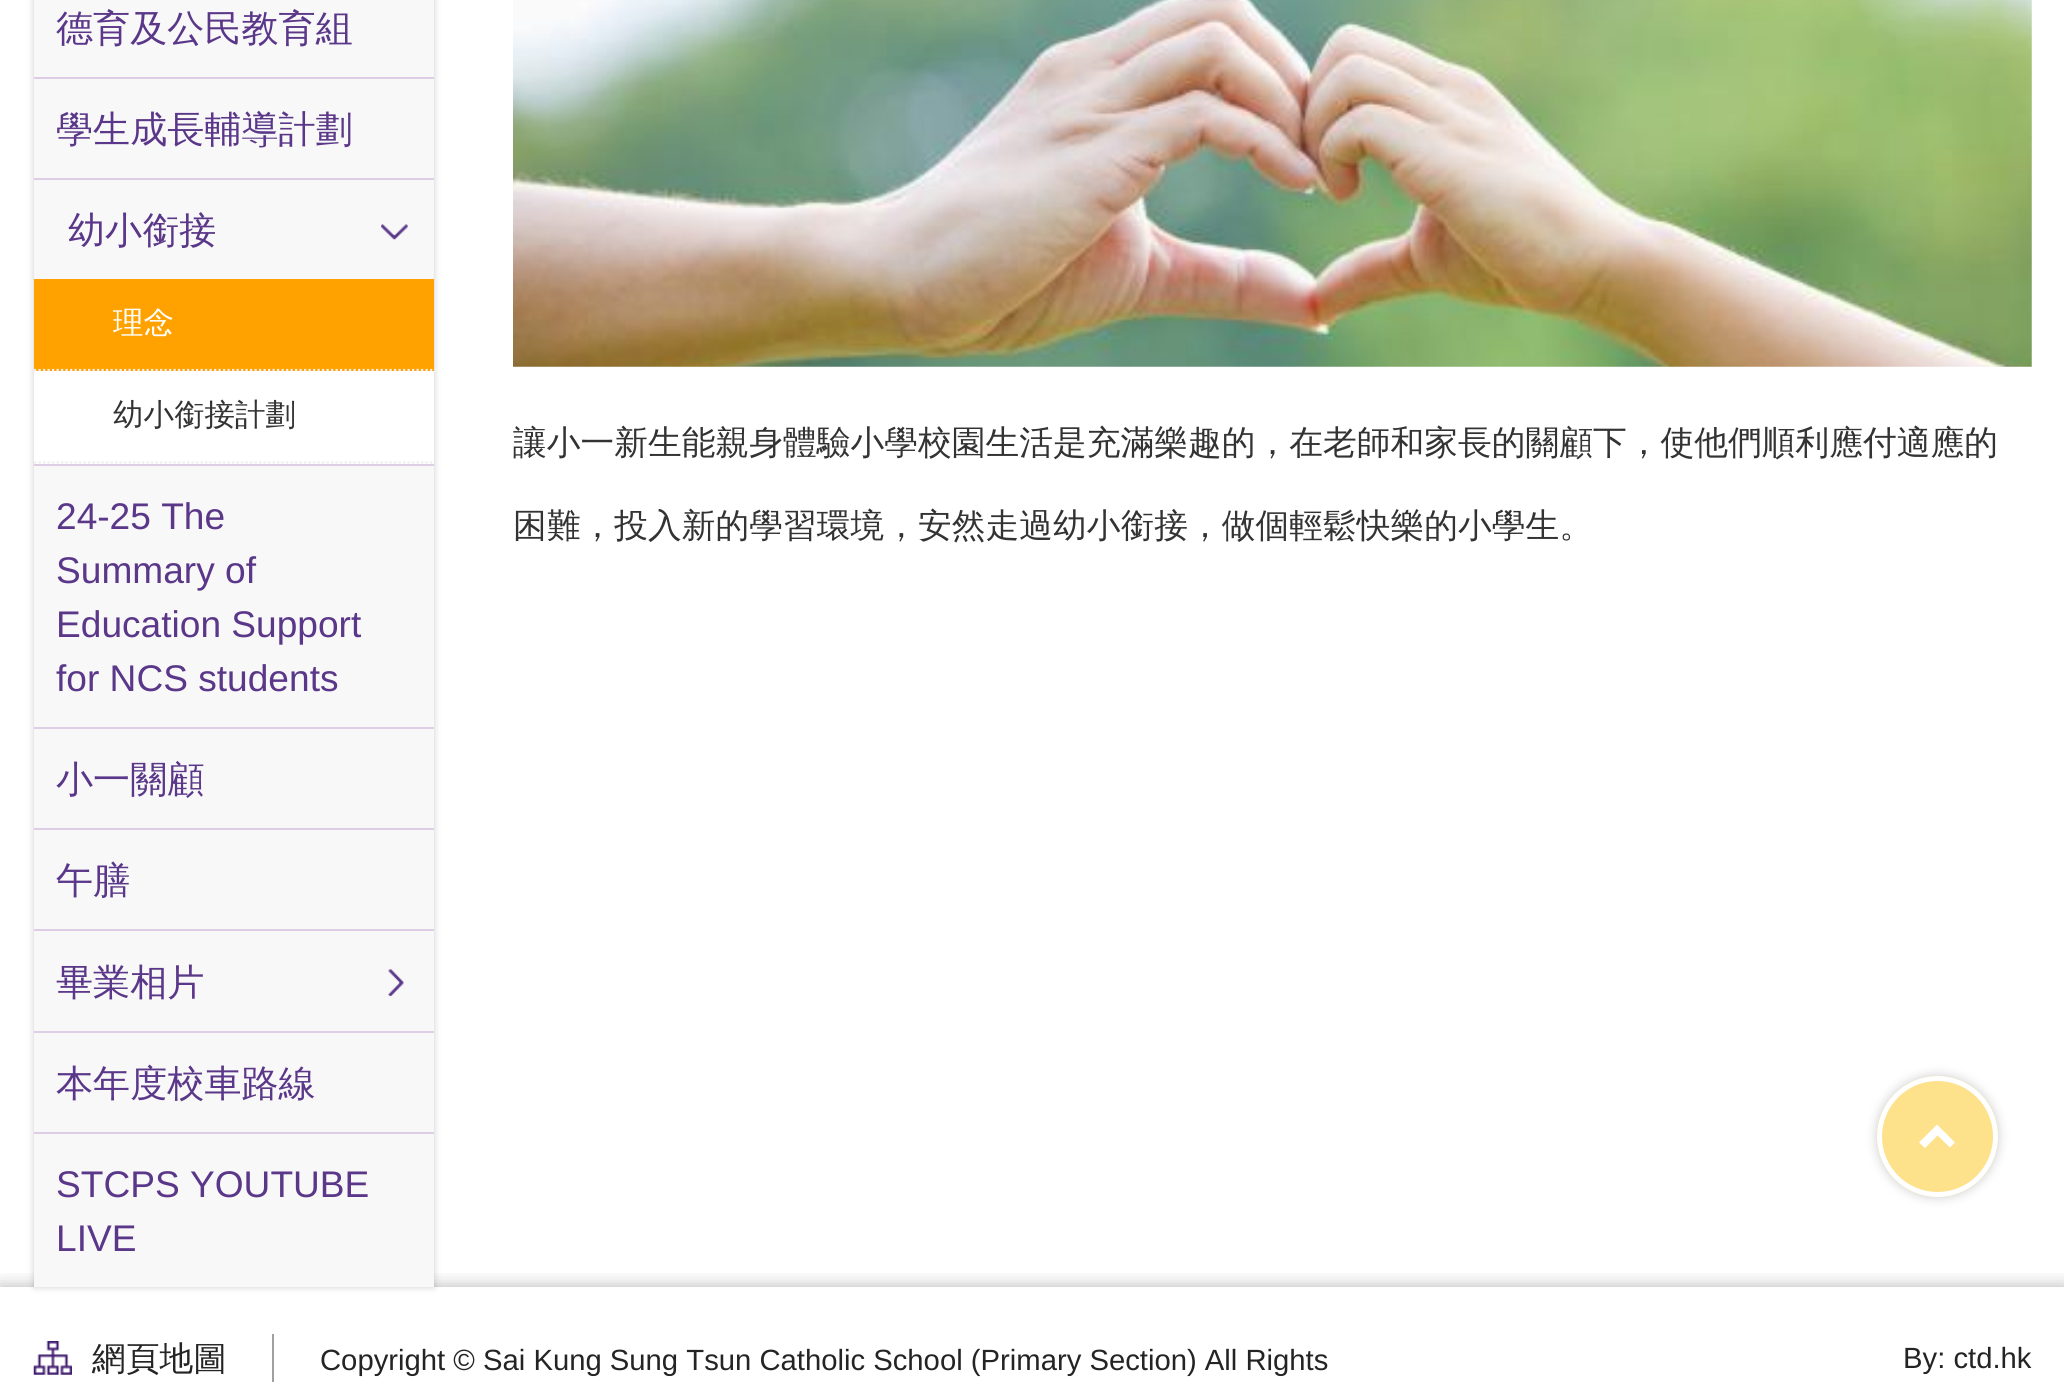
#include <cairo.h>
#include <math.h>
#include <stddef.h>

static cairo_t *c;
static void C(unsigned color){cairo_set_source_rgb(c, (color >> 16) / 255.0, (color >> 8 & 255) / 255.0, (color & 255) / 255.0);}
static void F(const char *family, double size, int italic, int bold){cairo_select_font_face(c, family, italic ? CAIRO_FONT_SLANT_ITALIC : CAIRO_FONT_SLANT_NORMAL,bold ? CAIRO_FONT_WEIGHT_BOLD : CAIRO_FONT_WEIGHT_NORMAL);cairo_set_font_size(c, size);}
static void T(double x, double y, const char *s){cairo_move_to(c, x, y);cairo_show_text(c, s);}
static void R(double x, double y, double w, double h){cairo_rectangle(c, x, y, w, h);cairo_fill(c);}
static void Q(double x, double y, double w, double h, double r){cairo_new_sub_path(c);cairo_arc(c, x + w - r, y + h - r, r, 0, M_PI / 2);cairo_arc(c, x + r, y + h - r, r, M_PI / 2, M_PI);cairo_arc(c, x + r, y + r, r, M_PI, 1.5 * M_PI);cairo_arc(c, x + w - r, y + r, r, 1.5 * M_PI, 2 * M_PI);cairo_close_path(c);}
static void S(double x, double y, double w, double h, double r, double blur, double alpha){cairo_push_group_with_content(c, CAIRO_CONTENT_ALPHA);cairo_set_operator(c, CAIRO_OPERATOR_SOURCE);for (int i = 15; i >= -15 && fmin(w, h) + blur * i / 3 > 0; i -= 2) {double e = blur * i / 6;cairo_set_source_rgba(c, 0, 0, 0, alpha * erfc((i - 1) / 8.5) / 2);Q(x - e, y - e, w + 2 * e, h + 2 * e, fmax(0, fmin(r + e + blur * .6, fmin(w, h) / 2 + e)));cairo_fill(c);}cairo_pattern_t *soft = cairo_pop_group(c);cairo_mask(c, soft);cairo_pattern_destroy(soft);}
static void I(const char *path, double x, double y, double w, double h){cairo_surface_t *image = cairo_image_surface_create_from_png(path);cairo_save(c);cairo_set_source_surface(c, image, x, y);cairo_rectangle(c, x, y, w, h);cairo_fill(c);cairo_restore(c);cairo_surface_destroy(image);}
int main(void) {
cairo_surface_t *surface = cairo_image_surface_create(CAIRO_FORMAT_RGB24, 2064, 1399);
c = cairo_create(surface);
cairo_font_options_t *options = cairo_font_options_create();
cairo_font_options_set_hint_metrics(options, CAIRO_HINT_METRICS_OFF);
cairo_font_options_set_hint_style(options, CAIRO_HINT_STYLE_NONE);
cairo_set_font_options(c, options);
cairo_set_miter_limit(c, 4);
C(0xffffff);
cairo_paint(c);
C(0x000000);
S(34,-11,400,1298,0,3.5,.2);
cairo_save(c);
cairo_rectangle(c,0,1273,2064,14);
cairo_clip(c);
S(0,1287,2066,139,0,9,.3);
cairo_restore(c);
C(0xf8f8f8);
R(34,0,400,1287);
F("WenQuanYi Zen Hei Medium",37.1,0,0);
C(0x5a3789);
T(56,41,"德育及公民教育組");
C(0xdecde5);
R(34,77,400,2);
C(0x5a3789);
T(56,142,"學生成長輔導計劃");
I("1.png",381,224,27,16);
C(0xdecde5);
R(34,178,400,2);
C(0x5a3789);
T(68,243,"幼小銜接");
C(0xffa200);
R(34,279,400,92);
cairo_new_path(c);
cairo_move_to(c,34,370);
cairo_line_to(c,434,370);
C(0xeeeeee);
cairo_set_line_width(c,2.2);
cairo_set_dash(c,(double[]){2.25,2.25},2,0);
cairo_stroke(c);
F("WenQuanYi Zen Hei Medium",30.5,0,0);
C(0xffffff);
T(113,333,"理念");
R(34,371,400,93);
cairo_new_path(c);
cairo_move_to(c,34,462.5);
cairo_line_to(c,434,462.5);
C(0xeeeeee);
cairo_stroke(c);
C(0x333333);
T(113,425,"幼小銜接計劃");
C(0xdecde5);
R(34,464,400,2);
F("Liberation Sans",37.1,0,0);
C(0x5a3789);
T(56,529,"24-25 The");
T(56,583,"Summary of");
T(56,637,"Education Support");
T(56,691,"for NCS students");
C(0xdecde5);
R(34,727,400,2);
F("WenQuanYi Zen Hei Medium",37.1,0,0);
C(0x5a3789);
T(56,792,"小一關顧");
C(0xdecde5);
R(34,828,400,2);
C(0x5a3789);
T(56,893,"午膳");
I("2.png",388,969,16,28);
C(0xdecde5);
R(34,929,400,2);
C(0x5a3789);
T(56,995,"畢業相片");
C(0xdecde5);
R(34,1031,400,2);
C(0x5a3789);
T(56,1096,"本年度校車路線");
C(0xdecde5);
R(34,1132,400,2);
F("Liberation Sans",37.1,0,0);
C(0x5a3789);
T(56,1197,"STCPS YOUTUBE");
T(56,1251,"LIVE");
I("3.png",513,0,1519,367);
F("WenQuanYi Zen Hei Medium",33.75,0,0);
C(0x333333);
T(513,454,"讓小一新生能親身體驗小學校園生活是充滿樂趣的，在老師和家長的關顧下，使他們順利應付適應的");
T(513,537,"困難，投入新的學習環境，安然走過幼小銜接，做個輕鬆快樂的小學生。");
C(0xcccccc);
S(1877,1076,121,121,60.5,5.5,1);
C(0xfde18b);
cairo_arc(c,1937.5,1136.5,60.5,0,2 * M_PI);
cairo_fill(c);
C(0xffffff);
cairo_new_path(c);
cairo_move_to(c,1937,1124.5);
cairo_line_to(c,1955,1142.5);
cairo_line_to(c,1950,1147.5);
cairo_line_to(c,1937.5,1135.5);
cairo_line_to(c,1925,1148);
cairo_line_to(c,1919,1142.5);
cairo_close_path(c);
cairo_fill(c);
cairo_arc(c,1937.5,1136.5,58,0,2 * M_PI);
cairo_set_line_width(c,5);
cairo_set_dash(c,NULL,0,0);
cairo_stroke(c);
I("4.png",33,1341,39,34);
C(0x242424);
T(92,1370,"網頁地圖");
C(0xa0a0a0);
R(272,1334,2,48);
F("Liberation Sans",29.25,0,0);
C(0x242424);
T(320,1370,"Copyright © Sai Kung Sung Tsun Catholic School (Primary Section) All Rights");
T(1903,1368,"By: ctd.hk");
cairo_surface_write_to_png(surface, "o.png");
cairo_font_options_destroy(options);
cairo_destroy(c);
cairo_surface_destroy(surface);
return 0;
}
